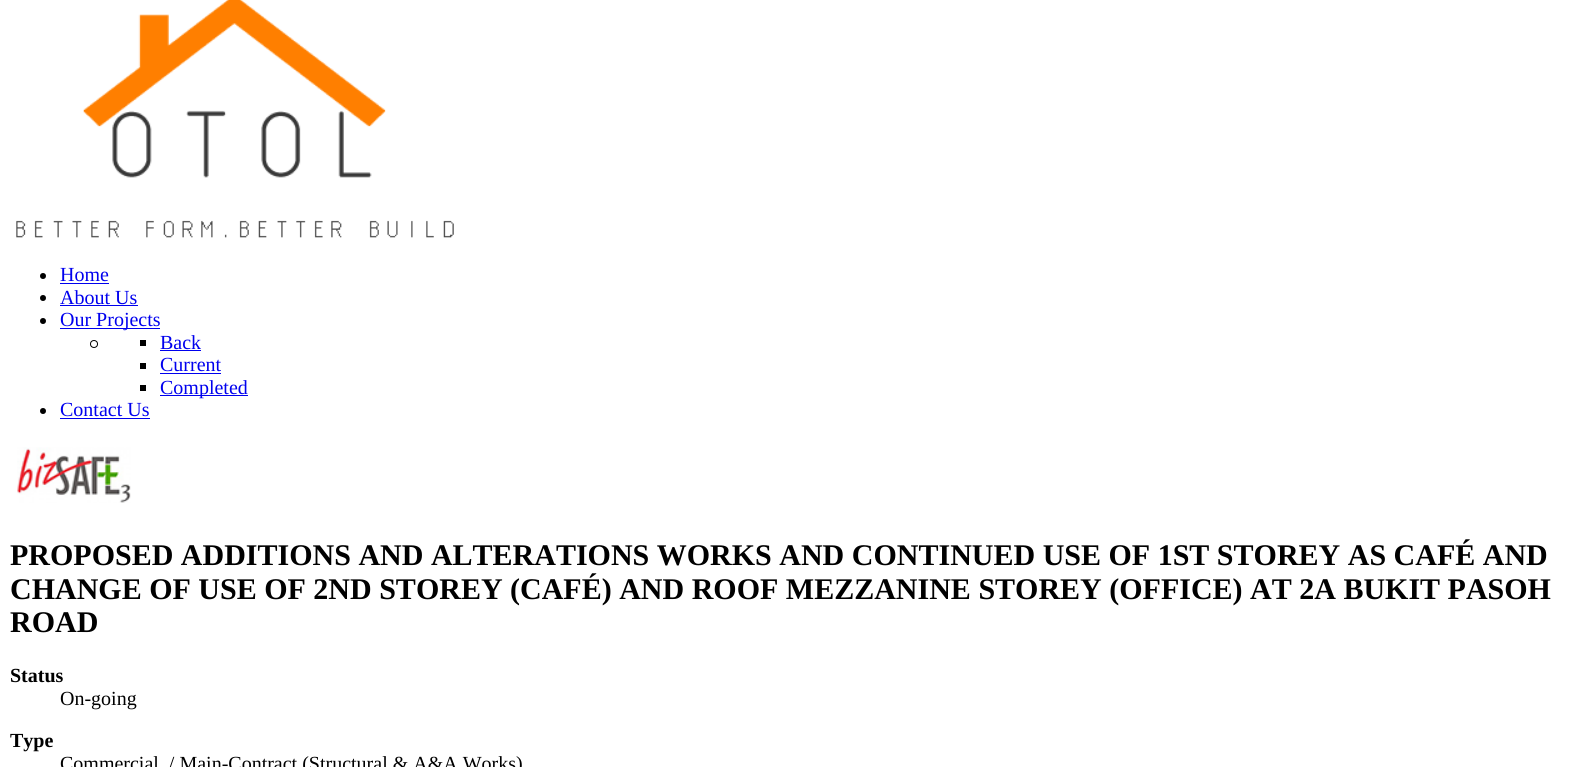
#include <cairo.h>
#include <math.h>
#include <stddef.h>

static cairo_t *c;
static void C(unsigned color){cairo_set_source_rgb(c, (color >> 16) / 255.0, (color >> 8 & 255) / 255.0, (color & 255) / 255.0);}
static void F(const char *family, double size, int italic, int bold){cairo_select_font_face(c, family, italic ? CAIRO_FONT_SLANT_ITALIC : CAIRO_FONT_SLANT_NORMAL,bold ? CAIRO_FONT_WEIGHT_BOLD : CAIRO_FONT_WEIGHT_NORMAL);cairo_set_font_size(c, size);}
static void T(double x, double y, const char *s){cairo_move_to(c, x, y);cairo_show_text(c, s);}
static void R(double x, double y, double w, double h){cairo_rectangle(c, x, y, w, h);cairo_fill(c);}
static void I(const char *path, double x, double y, double w, double h){cairo_surface_t *image = cairo_image_surface_create_from_png(path);cairo_save(c);cairo_set_source_surface(c, image, x, y);cairo_rectangle(c, x, y, w, h);cairo_fill(c);cairo_restore(c);cairo_surface_destroy(image);}
int main(void) {
cairo_surface_t *surface = cairo_image_surface_create(CAIRO_FORMAT_RGB24, 1585, 767);
c = cairo_create(surface);
cairo_font_options_t *options = cairo_font_options_create();
cairo_font_options_set_hint_metrics(options, CAIRO_HINT_METRICS_OFF);
cairo_font_options_set_hint_style(options, CAIRO_HINT_STYLE_NONE);
cairo_set_font_options(c, options);
cairo_set_miter_limit(c, 4);
C(0xffffff);
cairo_paint(c);
I("1.png",16,0,438,238);
C(0x000000);
cairo_arc(c,43,276,3,0,2 * M_PI);
cairo_fill(c);
F("Liberation Serif",20,0,0);
C(0x0000ee);
T(60,281,"Home");
R(60,283,49,1);
C(0x000000);
cairo_new_path(c);
cairo_arc(c,43,298,3,0,2 * M_PI);
cairo_fill(c);
C(0x0000ee);
T(60,304,"About Us");
R(60,305,78,1);
C(0x000000);
cairo_new_path(c);
cairo_arc(c,43,321,3,0,2 * M_PI);
cairo_fill(c);
C(0x0000ee);
R(60,328,100,1);
T(60,326,"Our Projects");
cairo_new_path(c);
cairo_arc(c,94,344,3.5,0,2 * M_PI);
C(0x000000);
cairo_set_line_width(c,1);
cairo_stroke(c);
R(140,340,6,6);
C(0x0000ee);
T(160,349,"Back");
R(160,350,41,1);
C(0x000000);
R(140,363,6,6);
C(0x0000ee);
T(160,371,"Current");
R(160,373,61,1);
C(0x000000);
R(140,385,6,6);
C(0x0000ee);
R(160,395,88,1);
T(160,394,"Completed");
C(0x000000);
cairo_new_path(c);
cairo_arc(c,43,411,3,0,2 * M_PI);
cairo_fill(c);
C(0x0000ee);
T(60,416,"Contact Us");
R(60,418,90,1);
I("2.png",17,447,114,56);
F("Liberation Serif",30,0,1);
C(0x000000);
T(10,565,"PROPOSED ADDITIONS AND ALTERATIONS WORKS AND CONTINUED USE OF 1ST STOREY AS CAFÉ AND");
T(10,599,"CHANGE OF USE OF 2ND STOREY (CAFÉ) AND ROOF MEZZANINE STOREY (OFFICE) AT 2A BUKIT PASOH");
T(10,632,"ROAD");
F("Liberation Serif",20,0,1);
T(10,682,"Status");
F("Liberation Serif",20,0,0);
T(60,705,"On-going");
F("Liberation Serif",20,0,1);
T(10,747,"Type");
F("Liberation Serif",20,0,0);
T(60,770,"Commercial  / Main-Contract (Structural & A&A Works)");
cairo_surface_write_to_png(surface, "o.png");
cairo_font_options_destroy(options);
cairo_destroy(c);
cairo_surface_destroy(surface);
return 0;
}
